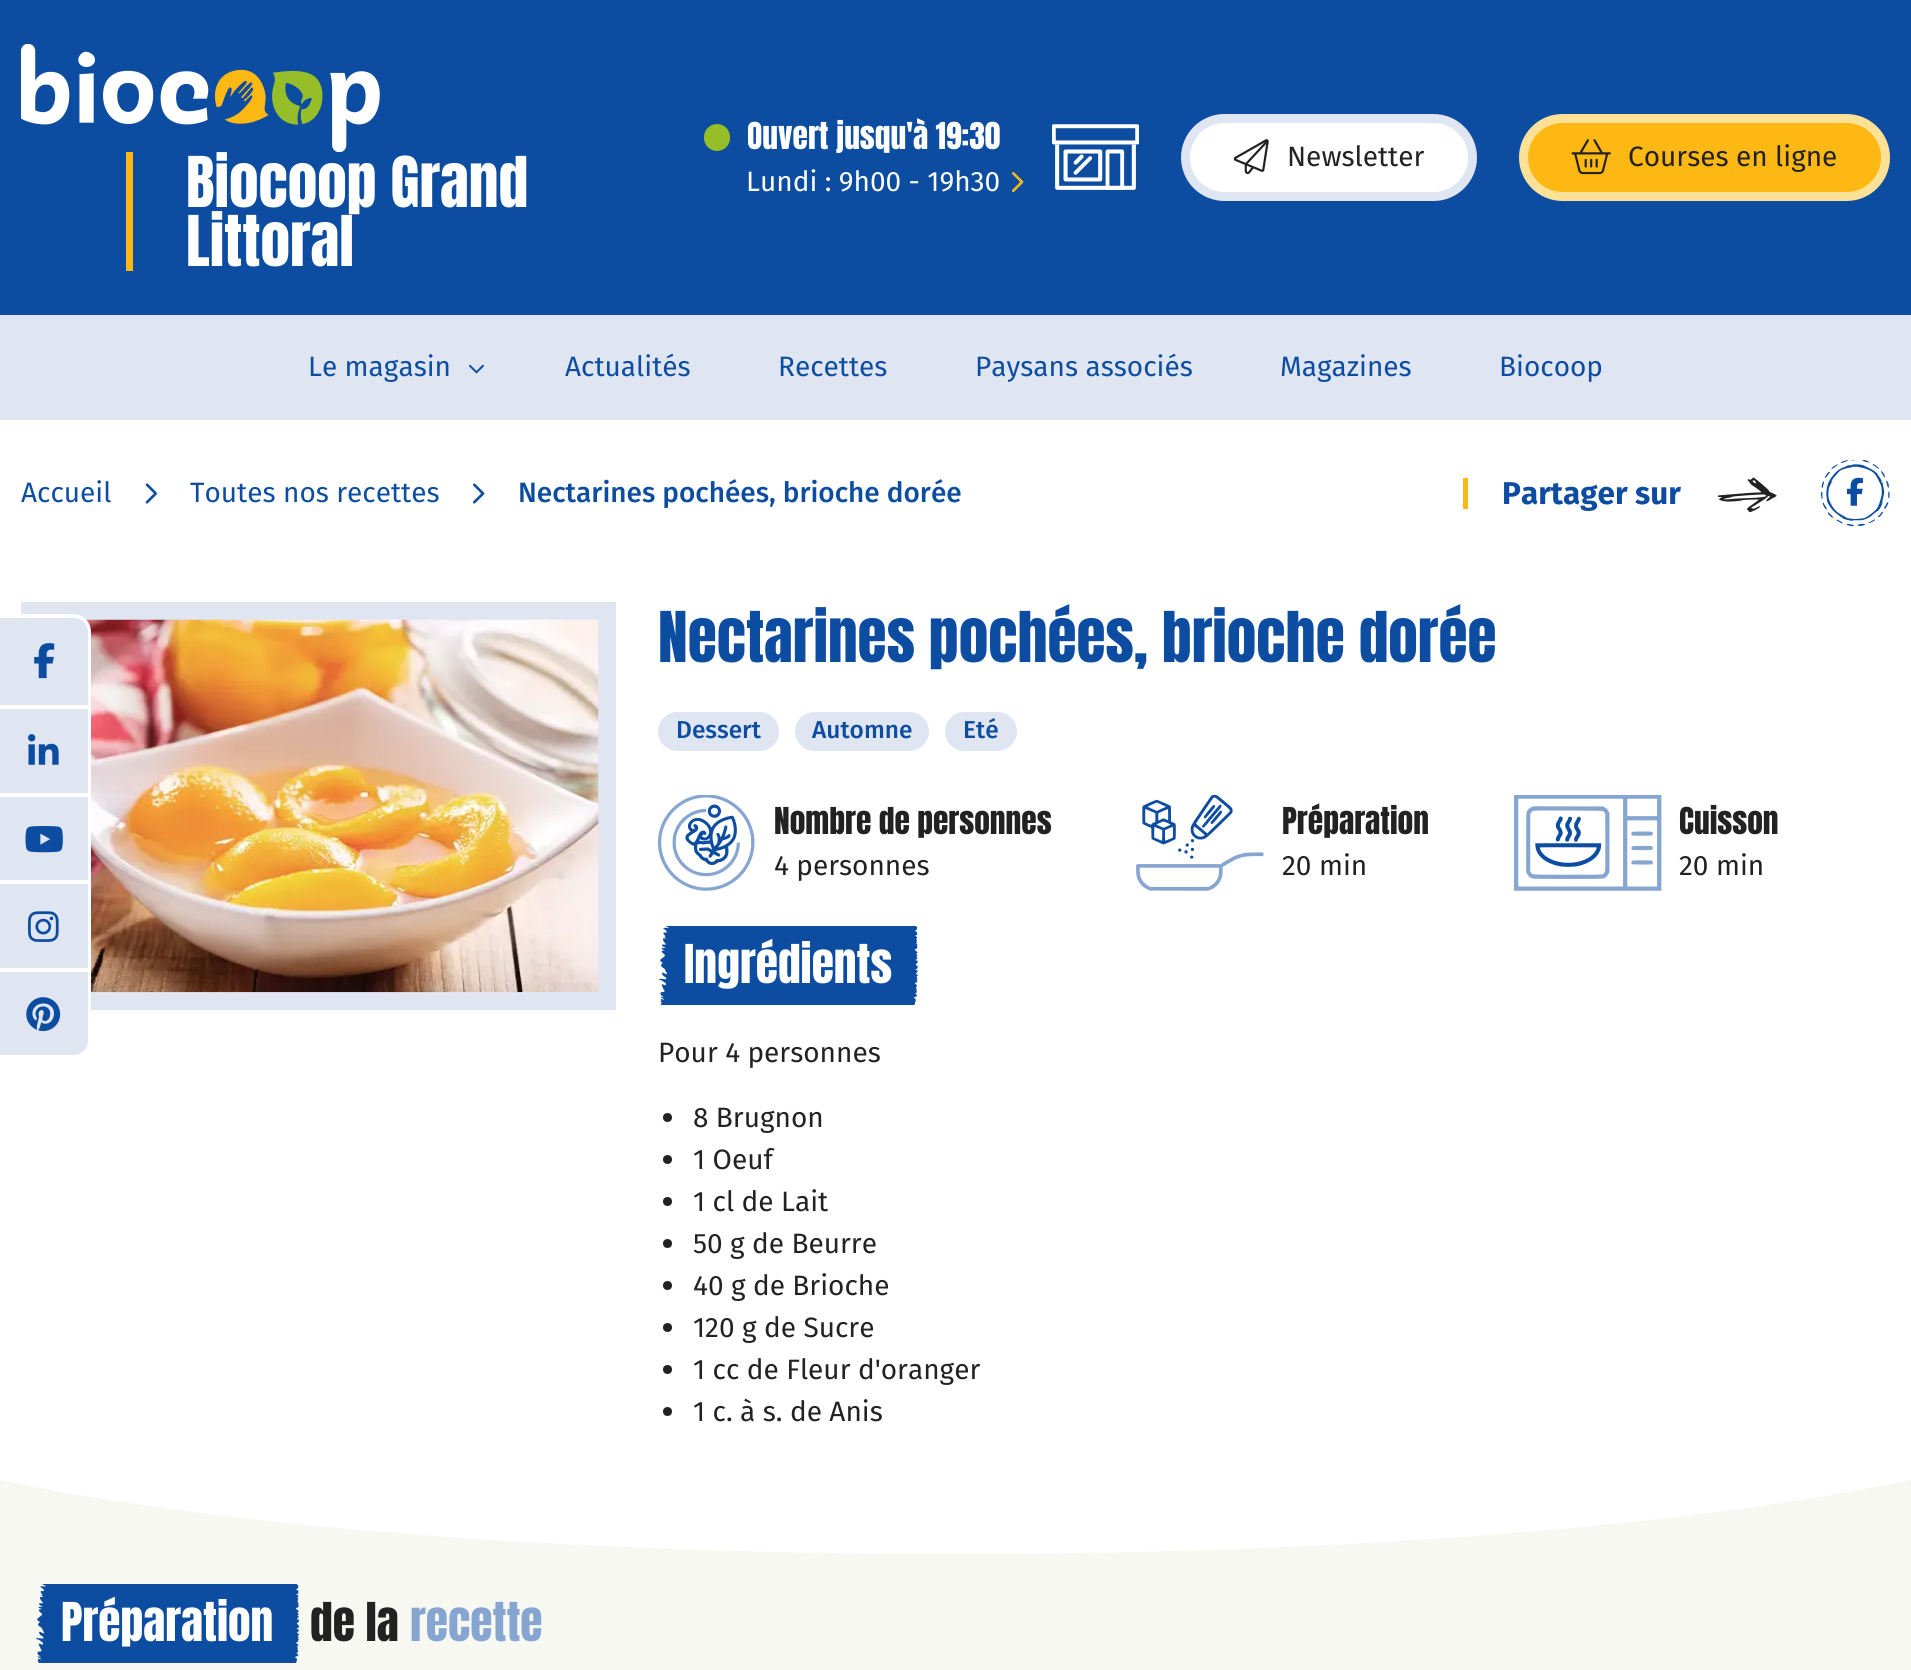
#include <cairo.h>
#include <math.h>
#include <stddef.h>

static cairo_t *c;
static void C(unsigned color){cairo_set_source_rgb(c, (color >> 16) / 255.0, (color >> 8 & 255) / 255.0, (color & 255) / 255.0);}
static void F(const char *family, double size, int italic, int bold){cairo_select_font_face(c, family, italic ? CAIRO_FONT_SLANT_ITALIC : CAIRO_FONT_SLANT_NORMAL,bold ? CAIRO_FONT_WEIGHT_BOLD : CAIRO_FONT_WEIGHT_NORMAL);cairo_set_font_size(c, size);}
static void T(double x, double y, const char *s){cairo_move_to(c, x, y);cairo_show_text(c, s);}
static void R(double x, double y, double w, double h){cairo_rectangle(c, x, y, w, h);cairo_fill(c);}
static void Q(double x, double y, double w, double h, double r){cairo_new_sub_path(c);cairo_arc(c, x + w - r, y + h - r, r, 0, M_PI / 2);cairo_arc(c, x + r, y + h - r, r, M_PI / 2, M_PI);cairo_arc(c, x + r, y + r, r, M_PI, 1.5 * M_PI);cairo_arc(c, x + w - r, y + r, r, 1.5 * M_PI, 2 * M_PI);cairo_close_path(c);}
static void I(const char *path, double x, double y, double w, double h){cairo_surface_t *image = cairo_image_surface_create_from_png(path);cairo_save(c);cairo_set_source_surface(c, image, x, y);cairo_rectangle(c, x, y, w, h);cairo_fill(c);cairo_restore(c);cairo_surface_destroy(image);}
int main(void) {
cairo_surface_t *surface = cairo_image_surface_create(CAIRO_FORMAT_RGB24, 1911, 1670);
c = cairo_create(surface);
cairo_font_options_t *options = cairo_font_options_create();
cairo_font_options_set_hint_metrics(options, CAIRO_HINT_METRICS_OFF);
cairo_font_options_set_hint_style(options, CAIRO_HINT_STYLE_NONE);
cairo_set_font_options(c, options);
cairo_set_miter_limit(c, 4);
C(0xffffff);
cairo_paint(c);
C(0x0c4da2);
R(0,0,1911,315);
I("1.png",21,44,359,108);
C(0xfdb813);
R(126,152,7,119);
F("Anton",59.5,0,0);
C(0xffffff);
T(186,207,"Biocoop Grand");
T(186,266,"Littoral");
C(0x96be28);
Q(704,124,26,27,13);
cairo_fill(c);
F("Anton",31.5,0,0);
C(0xffffff);
T(747,149,"Ouvert jusqu'à 19:30");
I("2.png",1052,124,87,66);
F("Fira Sans",28,0,0);
T(746,191,"Lundi : 9h00 - 19h30");
I("3.png",1012,171,12,21);
Q(1185.5,118.5,287,78,39);
cairo_fill_preserve(c);
C(0xdfe5f1);
cairo_set_line_width(c,9);
cairo_stroke(c);
I("4.png",1233,139,36,36);
C(0x222222);
T(1287,166,"Newsletter");
C(0xfdb813);
Q(1523.5,118.5,362,78,39);
cairo_fill_preserve(c);
C(0xfce197);
cairo_stroke(c);
I("5.png",1571,139,40,36);
C(0x222222);
T(1628,166,"Courses en ligne");
C(0xdfe5f1);
R(0,315,1911,105);
C(0x0c4da2);
T(308,376,"Le magasin");
I("6.png",468,364,16,10);
T(565,376,"Actualités");
T(778,376,"Recettes");
T(975,376,"Paysans associés");
T(1280,376,"Magazines");
T(1499,376,"Biocoop");
T(21,502,"Accueil");
I("7.png",145,483,12,21);
T(190,502,"Toutes nos recettes");
I("8.png",473,483,12,21);
F("Fira Sans Medium",28,0,0);
T(518,502,"Nectarines pochées, brioche dorée");
C(0xfdb813);
R(1463,478,5,31);
F("Fira Sans",31.5,0,1);
C(0x0c4da2);
T(1502,504,"Partager sur");
I("9.png",1717,477,60,36);
I("10.png",1821,460,69,67);
I("11.png",1847,477,16,29);
cairo_rectangle(c,30,611,577,390);
C(0xdfe5f1);
cairo_set_line_width(c,18);
cairo_stroke(c);
I("12.png",79,619,520,374);
F("Anton",59.5,0,0);
C(0x0c4da2);
T(658,662,"Nectarines pochées, brioche dorée");
C(0xdfe5f1);
Q(658,712,121,39,19.5);
cairo_fill(c);
F("Fira Sans Medium",24.5,0,0);
C(0x0c4da2);
T(676,738,"Dessert");
C(0xdfe5f1);
Q(795,712,134,39,19.5);
cairo_fill(c);
C(0x0c4da2);
T(812,738,"Automne");
C(0xdfe5f1);
Q(945,712,72,39,19.5);
cairo_fill(c);
C(0x0c4da2);
T(963,738,"Eté");
I("13.png",658,795,97,96);
F("Anton",31.5,0,0);
C(0x222222);
T(774,834,"Nombre de personnes");
F("Fira Sans",28,0,0);
T(774,875,"4 personnes");
I("14.png",1136,795,128,96);
F("Anton",31.5,0,0);
T(1282,834,"Préparation");
F("Fira Sans",28,0,0);
T(1282,875,"20 min");
I("15.png",1514,795,148,96);
F("Anton",31.5,0,0);
T(1679,834,"Cuisson");
F("Fira Sans",28,0,0);
T(1679,875,"20 min");
I("16.png",658,926,260,79);
F("Anton",45.5,0,0);
C(0xffffff);
T(684,983,"Ingrédients");
F("Fira Sans",28,0,0);
C(0x222222);
T(658,1062,"Pour 4 personnes");
cairo_new_path(c);
cairo_arc(c,667.5,1117.5,4.5,0,2 * M_PI);
cairo_fill(c);
T(693,1127,"8 Brugnon");
cairo_new_path(c);
cairo_arc(c,667.5,1159.5,4.5,0,2 * M_PI);
cairo_fill(c);
T(693,1169,"1 Oeuf");
cairo_new_path(c);
cairo_arc(c,667.5,1201.5,4.5,0,2 * M_PI);
cairo_fill(c);
T(693,1211,"1 cl de Lait");
cairo_new_path(c);
cairo_arc(c,667.5,1243.5,4.5,0,2 * M_PI);
cairo_fill(c);
T(693,1253,"50 g de Beurre");
cairo_new_path(c);
cairo_arc(c,667.5,1285.5,4.5,0,2 * M_PI);
cairo_fill(c);
T(693,1295,"40 g de Brioche");
cairo_new_path(c);
cairo_arc(c,667.5,1327.5,4.5,0,2 * M_PI);
cairo_fill(c);
T(693,1337,"120 g de Sucre");
cairo_new_path(c);
cairo_arc(c,667.5,1369.5,4.5,0,2 * M_PI);
cairo_fill(c);
T(693,1379,"1 cc de Fleur d'oranger");
cairo_new_path(c);
cairo_arc(c,667.5,1411.5,4.5,0,2 * M_PI);
cairo_fill(c);
T(693,1421,"1 c. à s. de Anis");
C(0xf8f8f2);
R(0,1479,1911,191);
cairo_save(c);
cairo_rectangle(c,0,1461,1911,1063);
cairo_clip(c);
C(0xffffff);
cairo_new_path(c);
cairo_move_to(c,955,1222);
cairo_curve_to(c,1588,1222,2101,1296.5,2101,1388);
cairo_curve_to(c,2101,1479.5,1588,1554,955,1554);
cairo_curve_to(c,322,1554,-191,1479.5,-191,1388);
cairo_curve_to(c,-191,1296.5,322,1222,955,1222);
cairo_close_path(c);
cairo_fill(c);
cairo_restore(c);
I("17.png",35,1584,264,79);
F("Anton",45.5,0,0);
C(0xffffff);
T(61,1641,"Préparation");
C(0x222222);
T(310,1641,"de la");
C(0x86a6d1);
T(410,1641,"recette");
cairo_new_path(c);
cairo_move_to(c,-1,616);
cairo_line_to(c,73,616);
cairo_curve_to(c,82,616,89,623,89,632);
cairo_line_to(c,89,1041);
cairo_curve_to(c,89,1050,82,1057,73,1057);
cairo_line_to(c,-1,1057);
cairo_close_path(c);
C(0xffffff);
cairo_set_line_width(c,4);
cairo_stroke(c);
C(0xdfe5f1);
cairo_new_path(c);
cairo_move_to(c,0,618);
cairo_line_to(c,74,618);
cairo_curve_to(c,81.5,618,88,624.5,88,632);
cairo_line_to(c,88,705);
cairo_line_to(c,0,705);
cairo_close_path(c);
cairo_fill(c);
I("18.png",34,643,21,36);
R(0,709,88,84);
C(0xffffff);
R(21,705,67,4);
I("19.png",28,734,31,31);
C(0xdfe5f1);
R(0,797,88,83);
C(0xffffff);
R(21,793,67,4);
I("20.png",25,826,38,27);
C(0xdfe5f1);
R(0,884,88,84);
C(0xffffff);
R(21,880,67,4);
I("21.png",28,911,31,31);
C(0xdfe5f1);
cairo_new_path(c);
cairo_move_to(c,0,971);
cairo_line_to(c,88,971);
cairo_line_to(c,88,1041);
cairo_curve_to(c,88,1048.5,81.5,1055,74,1055);
cairo_line_to(c,0,1055);
cairo_close_path(c);
cairo_fill(c);
C(0xffffff);
R(0,968,88,4);
I("22.png",26,997,35,35);
cairo_surface_write_to_png(surface, "o.png");
cairo_font_options_destroy(options);
cairo_destroy(c);
cairo_surface_destroy(surface);
return 0;
}
